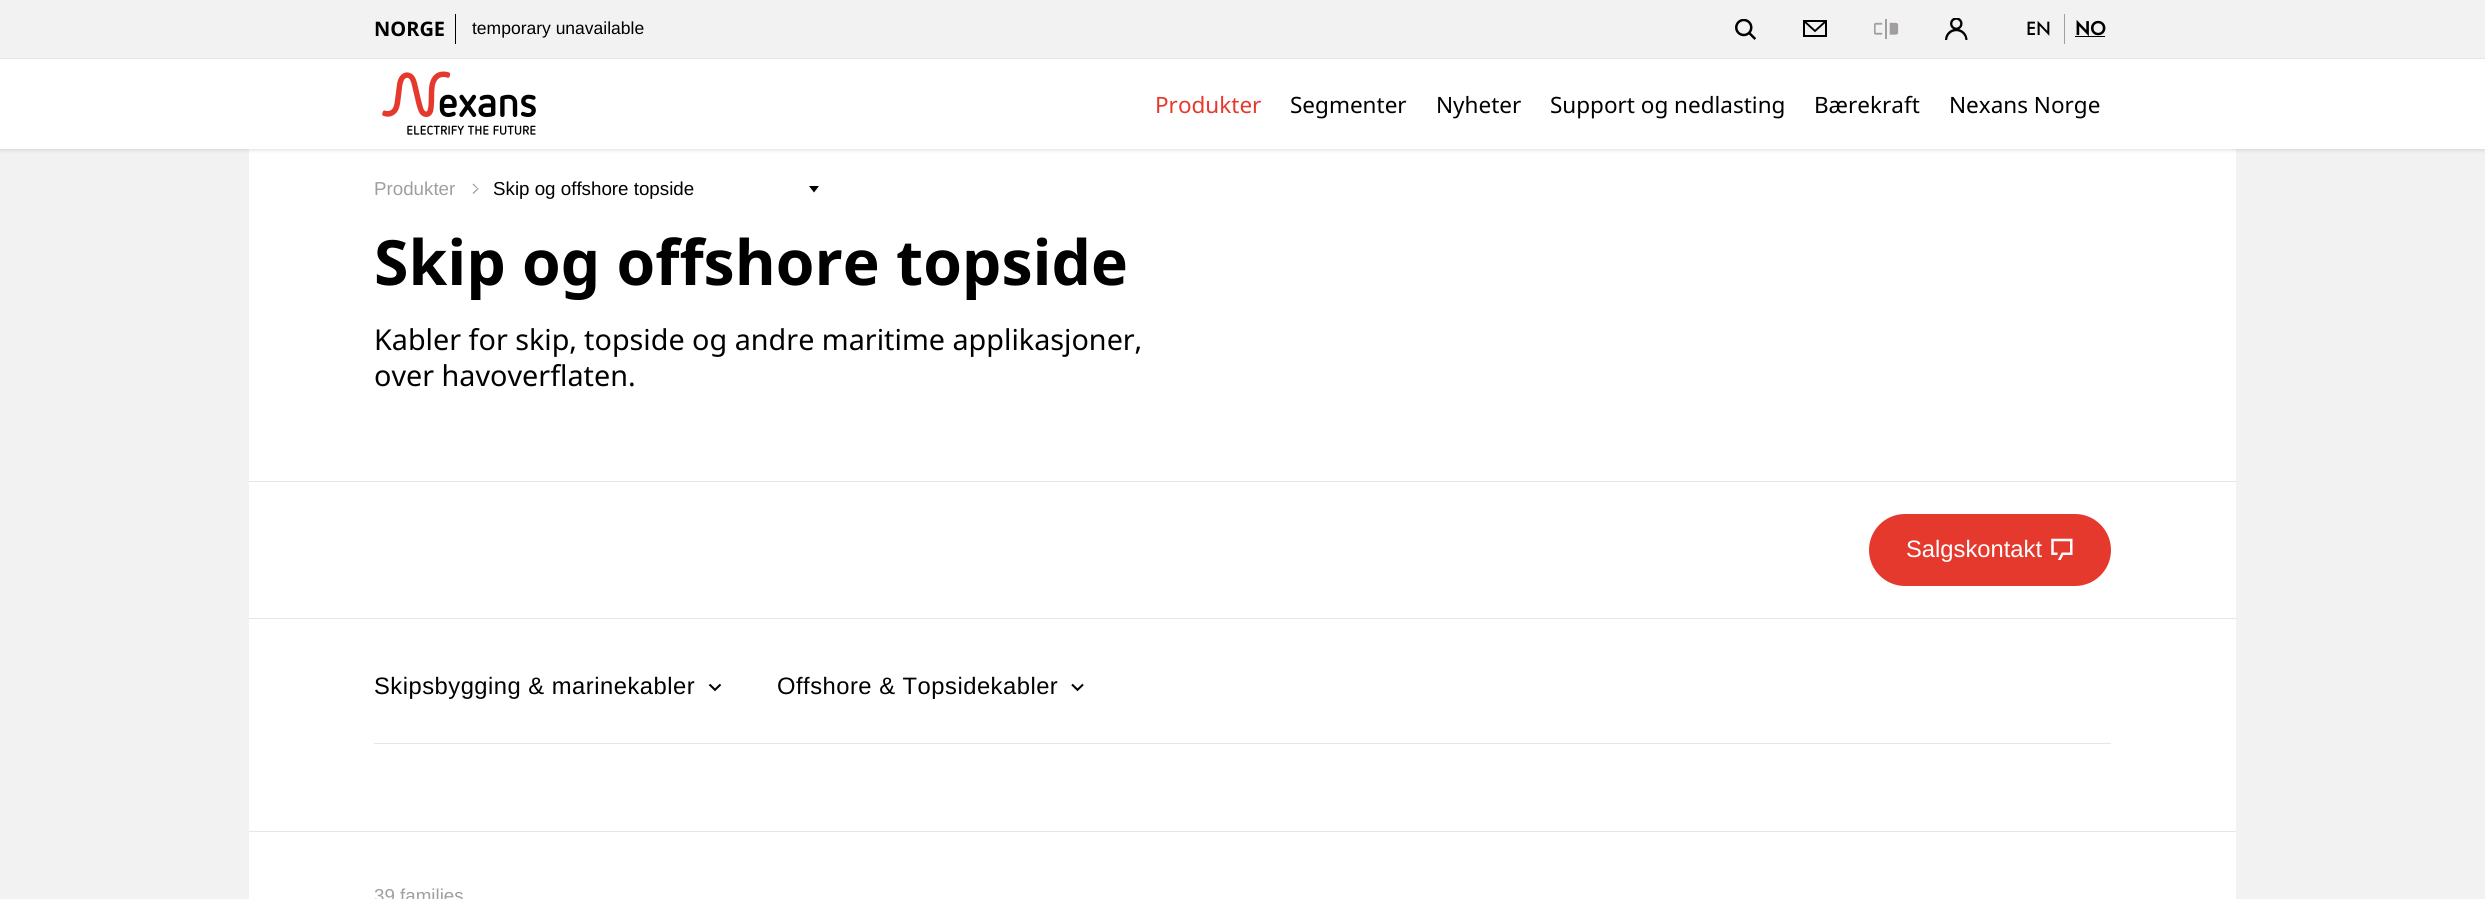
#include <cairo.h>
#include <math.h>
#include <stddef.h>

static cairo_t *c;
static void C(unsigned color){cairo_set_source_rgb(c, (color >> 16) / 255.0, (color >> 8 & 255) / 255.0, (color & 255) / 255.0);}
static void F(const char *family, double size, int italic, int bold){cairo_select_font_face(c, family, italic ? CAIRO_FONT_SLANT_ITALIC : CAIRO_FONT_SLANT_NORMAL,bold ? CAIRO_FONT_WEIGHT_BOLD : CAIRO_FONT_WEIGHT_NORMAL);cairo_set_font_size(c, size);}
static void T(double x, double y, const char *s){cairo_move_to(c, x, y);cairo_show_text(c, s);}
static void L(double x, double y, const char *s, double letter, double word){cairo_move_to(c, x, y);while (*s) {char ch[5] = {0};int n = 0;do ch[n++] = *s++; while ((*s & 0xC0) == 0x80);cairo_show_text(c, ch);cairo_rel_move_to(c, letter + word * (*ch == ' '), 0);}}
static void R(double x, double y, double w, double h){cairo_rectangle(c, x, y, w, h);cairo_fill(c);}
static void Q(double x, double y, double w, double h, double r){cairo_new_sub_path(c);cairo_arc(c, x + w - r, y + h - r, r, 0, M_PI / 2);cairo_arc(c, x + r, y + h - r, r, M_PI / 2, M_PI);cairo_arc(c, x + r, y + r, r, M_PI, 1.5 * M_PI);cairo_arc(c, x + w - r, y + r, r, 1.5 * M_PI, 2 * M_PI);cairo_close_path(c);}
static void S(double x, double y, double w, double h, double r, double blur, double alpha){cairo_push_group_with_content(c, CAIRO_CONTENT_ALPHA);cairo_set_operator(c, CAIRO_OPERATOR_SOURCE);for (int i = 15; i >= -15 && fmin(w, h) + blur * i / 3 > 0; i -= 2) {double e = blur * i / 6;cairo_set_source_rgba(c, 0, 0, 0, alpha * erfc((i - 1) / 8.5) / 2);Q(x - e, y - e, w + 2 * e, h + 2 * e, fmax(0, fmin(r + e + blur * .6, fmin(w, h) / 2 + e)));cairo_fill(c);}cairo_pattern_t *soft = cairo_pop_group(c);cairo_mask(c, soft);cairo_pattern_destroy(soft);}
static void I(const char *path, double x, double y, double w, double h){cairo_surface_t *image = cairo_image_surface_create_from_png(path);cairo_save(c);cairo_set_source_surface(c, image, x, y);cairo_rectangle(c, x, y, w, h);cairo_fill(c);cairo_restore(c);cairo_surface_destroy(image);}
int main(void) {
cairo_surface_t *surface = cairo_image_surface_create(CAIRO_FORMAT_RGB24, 2485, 899);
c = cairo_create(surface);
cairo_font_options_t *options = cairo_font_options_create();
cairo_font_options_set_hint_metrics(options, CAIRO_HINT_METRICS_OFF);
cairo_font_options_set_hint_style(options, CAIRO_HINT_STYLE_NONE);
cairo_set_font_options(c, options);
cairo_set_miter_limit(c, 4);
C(0xf2f2f2);
cairo_paint(c);
C(0xffffff);
R(249,149,1987,750);
C(0x000000);
S(0,0,2485,149,0,2.5,.2);
C(0xffffff);
R(0,59,2485,90);
C(0xf2f2f2);
R(0,0,2485,58);
C(0xe5e5e5);
R(0,58,2485,1);
C(0x000000);
R(455,14,1,30);
F("Noto Sans",20,0,1);
T(374,36,"NORGE");
F("Liberation Sans",17.5,0,0);
T(472,34,"temporary unavailable");
I("1.png",1735,19,21,21);
cairo_rectangle(c,1804,21,22,15);
cairo_stroke(c);
cairo_new_path(c);
cairo_move_to(c,1804,21);
cairo_line_to(c,1815,31);
cairo_line_to(c,1826,21);
cairo_set_line_width(c,1.9);
cairo_stroke(c);
I("2.png",1874,19,25,20);
I("3.png",1945,18,23,22);
F("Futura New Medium",20,0,0);
T(2026,35,"EN");
C(0xa39e9e);
R(2064,14,1,30);
F("Futura New",20,0,1);
C(0x000000);
T(2075,35,"NO");
R(2075,36,30,1);
I("4.png",382,71,154,64);
F("Noto Sans",22.5,0,0);
C(0xe5392e);
T(1155,113,"Produkter");
C(0x000000);
T(1290,113,"Segmenter");
T(1436,113,"Nyheter");
T(1550,113,"Support og nedlasting");
T(1814,113,"Bærekraft");
T(1949,113,"Nexans Norge");
F("Liberation Sans",18.75,0,0);
C(0xa39e9e);
T(374,195,"Produkter");
cairo_new_path(c);
cairo_move_to(c,473.5,183.5);
cairo_line_to(c,478.5,189);
cairo_line_to(c,478,189.5);
cairo_line_to(c,472.5,184.5);
cairo_close_path(c);
cairo_fill(c);
cairo_new_path(c);
cairo_move_to(c,478,188);
cairo_line_to(c,478.5,189);
cairo_line_to(c,473.5,194);
cairo_line_to(c,472.5,193);
cairo_close_path(c);
cairo_fill(c);
C(0x000000);
cairo_set_fill_rule(c,CAIRO_FILL_RULE_EVEN_ODD);
cairo_new_path(c);
cairo_move_to(c,819,186);
cairo_line_to(c,814,192.5);
cairo_line_to(c,809,186);
cairo_close_path(c);
cairo_fill(c);
T(493,195,"Skip og offshore topside");
F("Noto Sans",62.5,0,1);
T(374,285,"Skip og offshore topside");
F("Noto Sans",28.75,0,0);
T(374,350,"Kabler for skip, topside og andre maritime applikasjoner,");
T(374,386,"over havoverflaten.");
C(0xe5e5e5);
R(249,481,1987,1);
R(249,618,1987,1);
C(0xe5392e);
Q(1869,514,242,72,36);
cairo_fill(c);
F("Liberation Sans",23.75,0,0);
C(0xffffff);
T(1906,557,"Salgskontakt");
I("5.png",2051,538,22,22);
C(0xe6e6e6);
R(249,831,1987,1);
C(0x000000);
L(374,694,"Skipsbygging & marinekabler",.5,0);
I("6.png",708,683,14,9);
L(777,694,"Offshore & Topsidekabler",.5,0);
I("7.png",1071,683,13,9);
C(0xe6e6e6);
R(374,743,1737,1);
F("Liberation Sans",18.75,0,0);
C(0xa39e9e);
T(374,902,"39 families");
cairo_surface_write_to_png(surface, "o.png");
cairo_font_options_destroy(options);
cairo_destroy(c);
cairo_surface_destroy(surface);
return 0;
}
